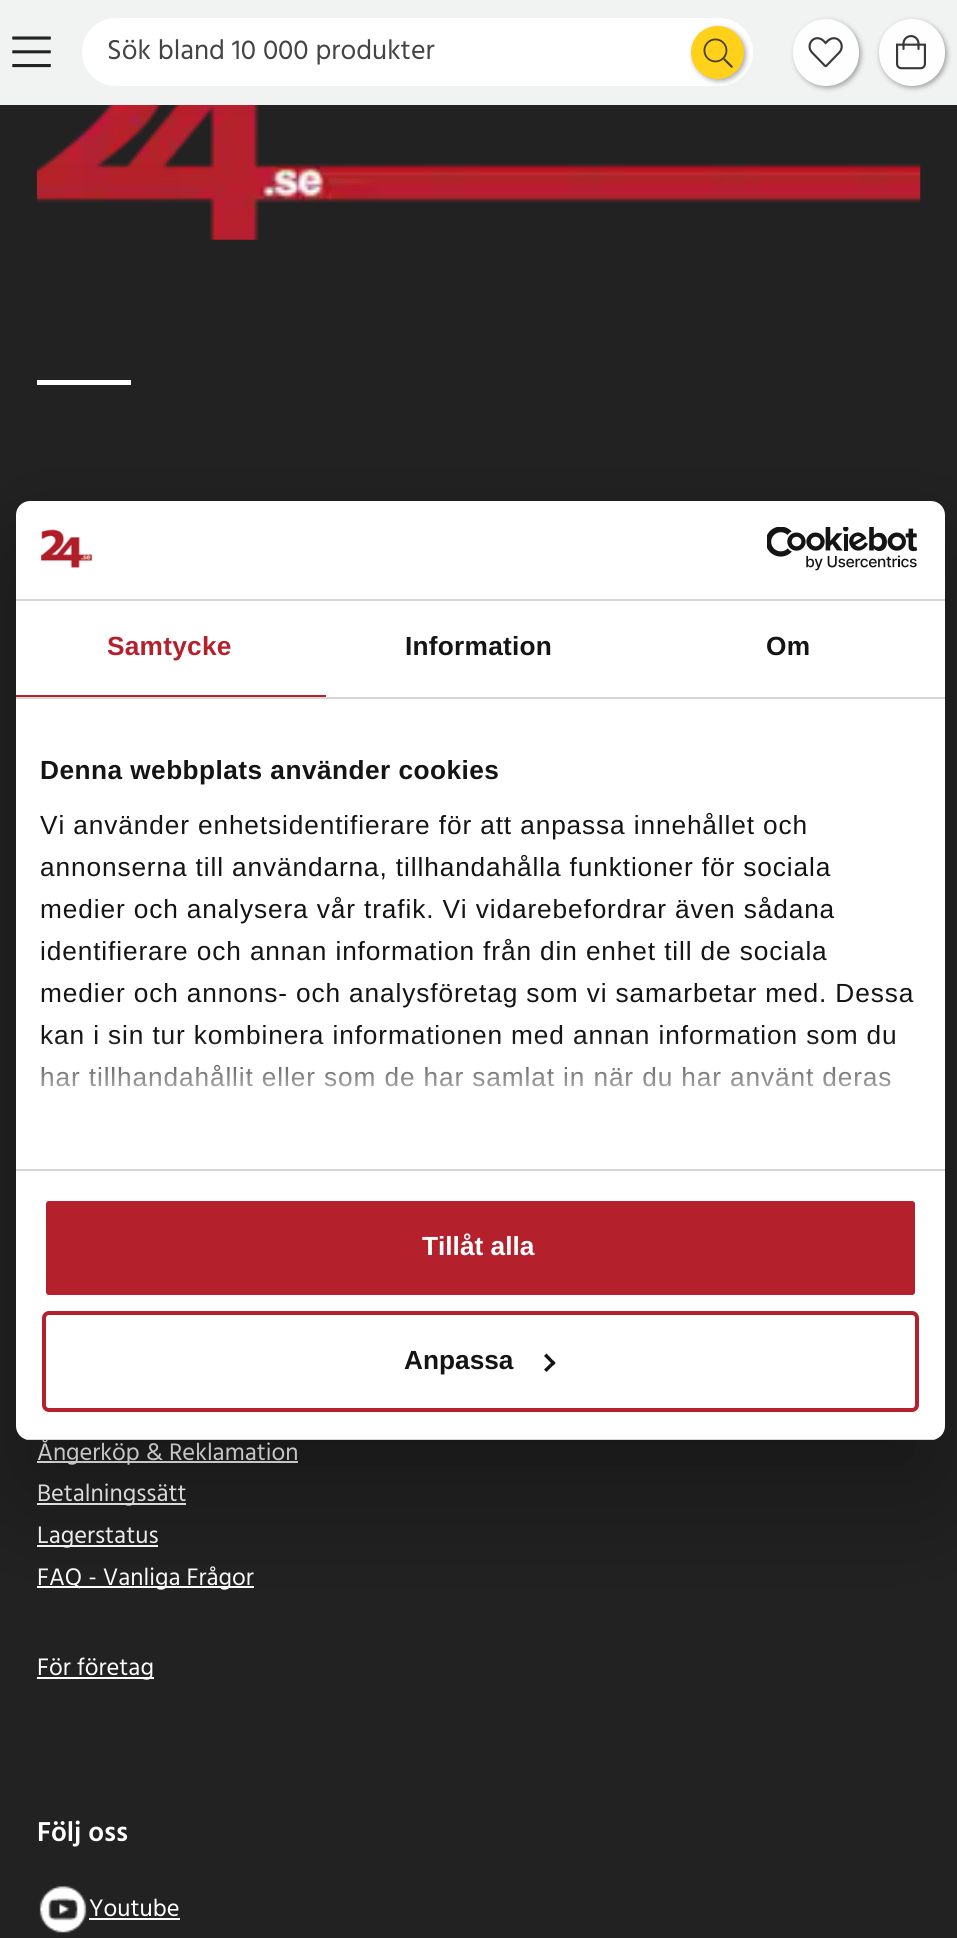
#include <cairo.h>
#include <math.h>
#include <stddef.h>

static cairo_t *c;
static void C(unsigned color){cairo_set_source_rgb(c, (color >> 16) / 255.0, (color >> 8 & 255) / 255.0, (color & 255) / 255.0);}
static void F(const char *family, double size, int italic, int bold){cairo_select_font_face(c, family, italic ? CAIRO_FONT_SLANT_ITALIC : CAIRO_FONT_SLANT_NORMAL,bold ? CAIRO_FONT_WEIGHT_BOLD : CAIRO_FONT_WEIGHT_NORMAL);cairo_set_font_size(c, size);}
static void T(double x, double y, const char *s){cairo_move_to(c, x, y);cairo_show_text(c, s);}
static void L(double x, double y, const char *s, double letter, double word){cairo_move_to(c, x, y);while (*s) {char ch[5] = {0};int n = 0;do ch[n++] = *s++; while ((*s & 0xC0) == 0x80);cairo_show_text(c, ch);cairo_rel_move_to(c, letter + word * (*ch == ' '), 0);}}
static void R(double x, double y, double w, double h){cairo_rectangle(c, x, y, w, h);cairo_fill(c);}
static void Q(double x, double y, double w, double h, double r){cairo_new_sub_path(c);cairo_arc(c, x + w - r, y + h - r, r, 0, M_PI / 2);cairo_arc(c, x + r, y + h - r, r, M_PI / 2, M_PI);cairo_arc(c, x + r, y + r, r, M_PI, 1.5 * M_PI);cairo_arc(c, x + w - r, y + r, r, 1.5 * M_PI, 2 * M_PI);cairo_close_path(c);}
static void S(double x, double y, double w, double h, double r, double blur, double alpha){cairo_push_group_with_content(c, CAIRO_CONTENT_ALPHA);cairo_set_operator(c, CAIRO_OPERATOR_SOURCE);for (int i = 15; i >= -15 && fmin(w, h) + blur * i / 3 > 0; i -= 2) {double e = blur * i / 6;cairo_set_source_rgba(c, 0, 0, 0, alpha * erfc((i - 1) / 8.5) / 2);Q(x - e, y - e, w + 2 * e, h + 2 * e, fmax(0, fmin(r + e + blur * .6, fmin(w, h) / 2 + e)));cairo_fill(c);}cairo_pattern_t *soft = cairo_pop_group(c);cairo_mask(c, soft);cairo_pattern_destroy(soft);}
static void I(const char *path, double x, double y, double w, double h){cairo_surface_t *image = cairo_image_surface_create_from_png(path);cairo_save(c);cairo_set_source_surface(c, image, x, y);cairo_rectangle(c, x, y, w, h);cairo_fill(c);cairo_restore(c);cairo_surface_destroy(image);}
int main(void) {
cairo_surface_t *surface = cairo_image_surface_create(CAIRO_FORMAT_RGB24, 957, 1938);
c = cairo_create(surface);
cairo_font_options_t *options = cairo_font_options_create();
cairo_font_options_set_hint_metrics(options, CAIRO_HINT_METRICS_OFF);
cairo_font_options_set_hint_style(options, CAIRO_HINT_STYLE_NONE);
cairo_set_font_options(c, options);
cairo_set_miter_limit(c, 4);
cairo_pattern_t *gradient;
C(0x222222);
cairo_paint(c);
C(0xf1f2f2);
R(0,0,957,105);
I("1.png",12,36,39,32);
C(0xffffff);
Q(82,18,671,68,34);
cairo_fill(c);
F("Hind",28,0,0);
C(0x444444);
T(107,59,"Sök bland 10 000 produkter");
C(0x000000);
S(693,28,53,53,26.5,2.5,.33);
C(0xffd11a);
cairo_arc(c,717.5,52.5,26.5,0,2 * M_PI);
cairo_fill(c);
I("2.png",703,38,30,30);
C(0x181818);
S(795,21,66,67,33,2.5,.37);
C(0xfefefe);
Q(793,19,66,67,33);
cairo_fill(c);
I("3.png",808,37,35,31);
C(0x181818);
S(880,21,67,67,33.5,2.5,.37);
C(0xfefefe);
Q(879,19,66,67,33);
cairo_fill(c);
I("4.png",896,35,30,35);
I("5.png",36,105,885,135);
C(0xffffff);
R(37,380,94,5);
R(37,1461,261,2);
F("Hind",24.5,0,0);
T(37,1460,"Ångerköp & Reklamation");
R(37,1503,149,2);
T(37,1501,"Betalningssätt");
R(37,1545,121,2);
T(37,1543,"Lagerstatus");
R(37,1586,217,2);
T(37,1585,"FAQ - Vanliga Frågor");
R(37,1677,117,2);
T(37,1675,"För företag");
F("Hind SemiBold",28,0,0);
T(37,1841,"Följ oss");
I("6.png",39,1886,48,47);
F("Hind",24.5,0,0);
T(89,1916,"Youtube");
R(89,1918,91,2);
C(0x000000);
S(16,557,929,939,14,59.5,.3);
C(0xffffff);
Q(16,501,929,939,14);
cairo_fill(c);
C(0xd6d6d6);
R(16,599,929,2);
I("7.png",41,529,51,39);
I("8.png",767,527,151,44);
R(16,697,929,2);
C(0xb5202d);
R(16,695,310,2);
F("Liberation Sans",26.25,0,1);
L(107,655,"Samtycke",.25,0);
C(0x141414);
L(405,655,"Information",.25,0);
L(766,655,"Om",.25,0);
C(0xd6d6d6);
R(16,1169,929,2);
C(0x141414);
L(40,779,"Denna webbplats använder cookies",.45,0);
F("Liberation Sans",26.25,0,0);
L(40,834,"Vi använder enhetsidentifierare för att anpassa innehållet och",.88,0);
L(40,876,"annonserna till användarna, tillhandahålla funktioner för sociala",.88,0);
L(40,918,"medier och analysera vår trafik. Vi vidarebefordrar även sådana",.88,0);
L(40,960,"identifierare och annan information från din enhet till de sociala",.88,0);
L(40,1002,"medier och annons- och analysföretag som vi samarbetar med. Dessa",.88,0);
L(40,1044,"kan i sin tur kombinera informationen med annan information som du",.88,0);
L(40,1086,"har tillhandahållit eller som de har samlat in när du har använt deras",.88,0);
gradient = cairo_pattern_create_linear(468,1168,468,1037);
cairo_pattern_add_color_stop_rgba(gradient,0,1,1,1,1);
cairo_pattern_add_color_stop_rgba(gradient,.5,1,1,1,.8);
cairo_pattern_add_color_stop_rgba(gradient,1,1,1,1,0);
cairo_set_source(c,gradient);
cairo_pattern_destroy(gradient);
R(42,1039,853,48);
cairo_save(c);
Q(16,501,929,939,14);
cairo_clip(c);
C(0xd6d6d6);
R(25,1439,911,1);
cairo_restore(c);
C(0xb5202d);
Q(44,1199,873,98,5);
cairo_fill_preserve(c);
C(0xffffff);
cairo_set_line_width(c,4);
cairo_stroke(c);
F("Liberation Sans",26.25,0,1);
T(422,1255,"Tillåt alla");
Q(44,1313,873,97,5);
C(0xb5202d);
cairo_stroke(c);
C(0x141414);
T(404,1369,"Anpassa");
cairo_new_path(c);
cairo_move_to(c,546.5,1353.5);
cairo_line_to(c,555.5,1363);
cairo_line_to(c,553.5,1365.5);
cairo_line_to(c,544,1356);
cairo_close_path(c);
cairo_fill(c);
cairo_new_path(c);
cairo_move_to(c,553.5,1360.5);
cairo_line_to(c,555.5,1363);
cairo_line_to(c,546.5,1372);
cairo_line_to(c,544,1369.5);
cairo_close_path(c);
cairo_fill(c);
cairo_surface_write_to_png(surface, "o.png");
cairo_font_options_destroy(options);
cairo_destroy(c);
cairo_surface_destroy(surface);
return 0;
}
